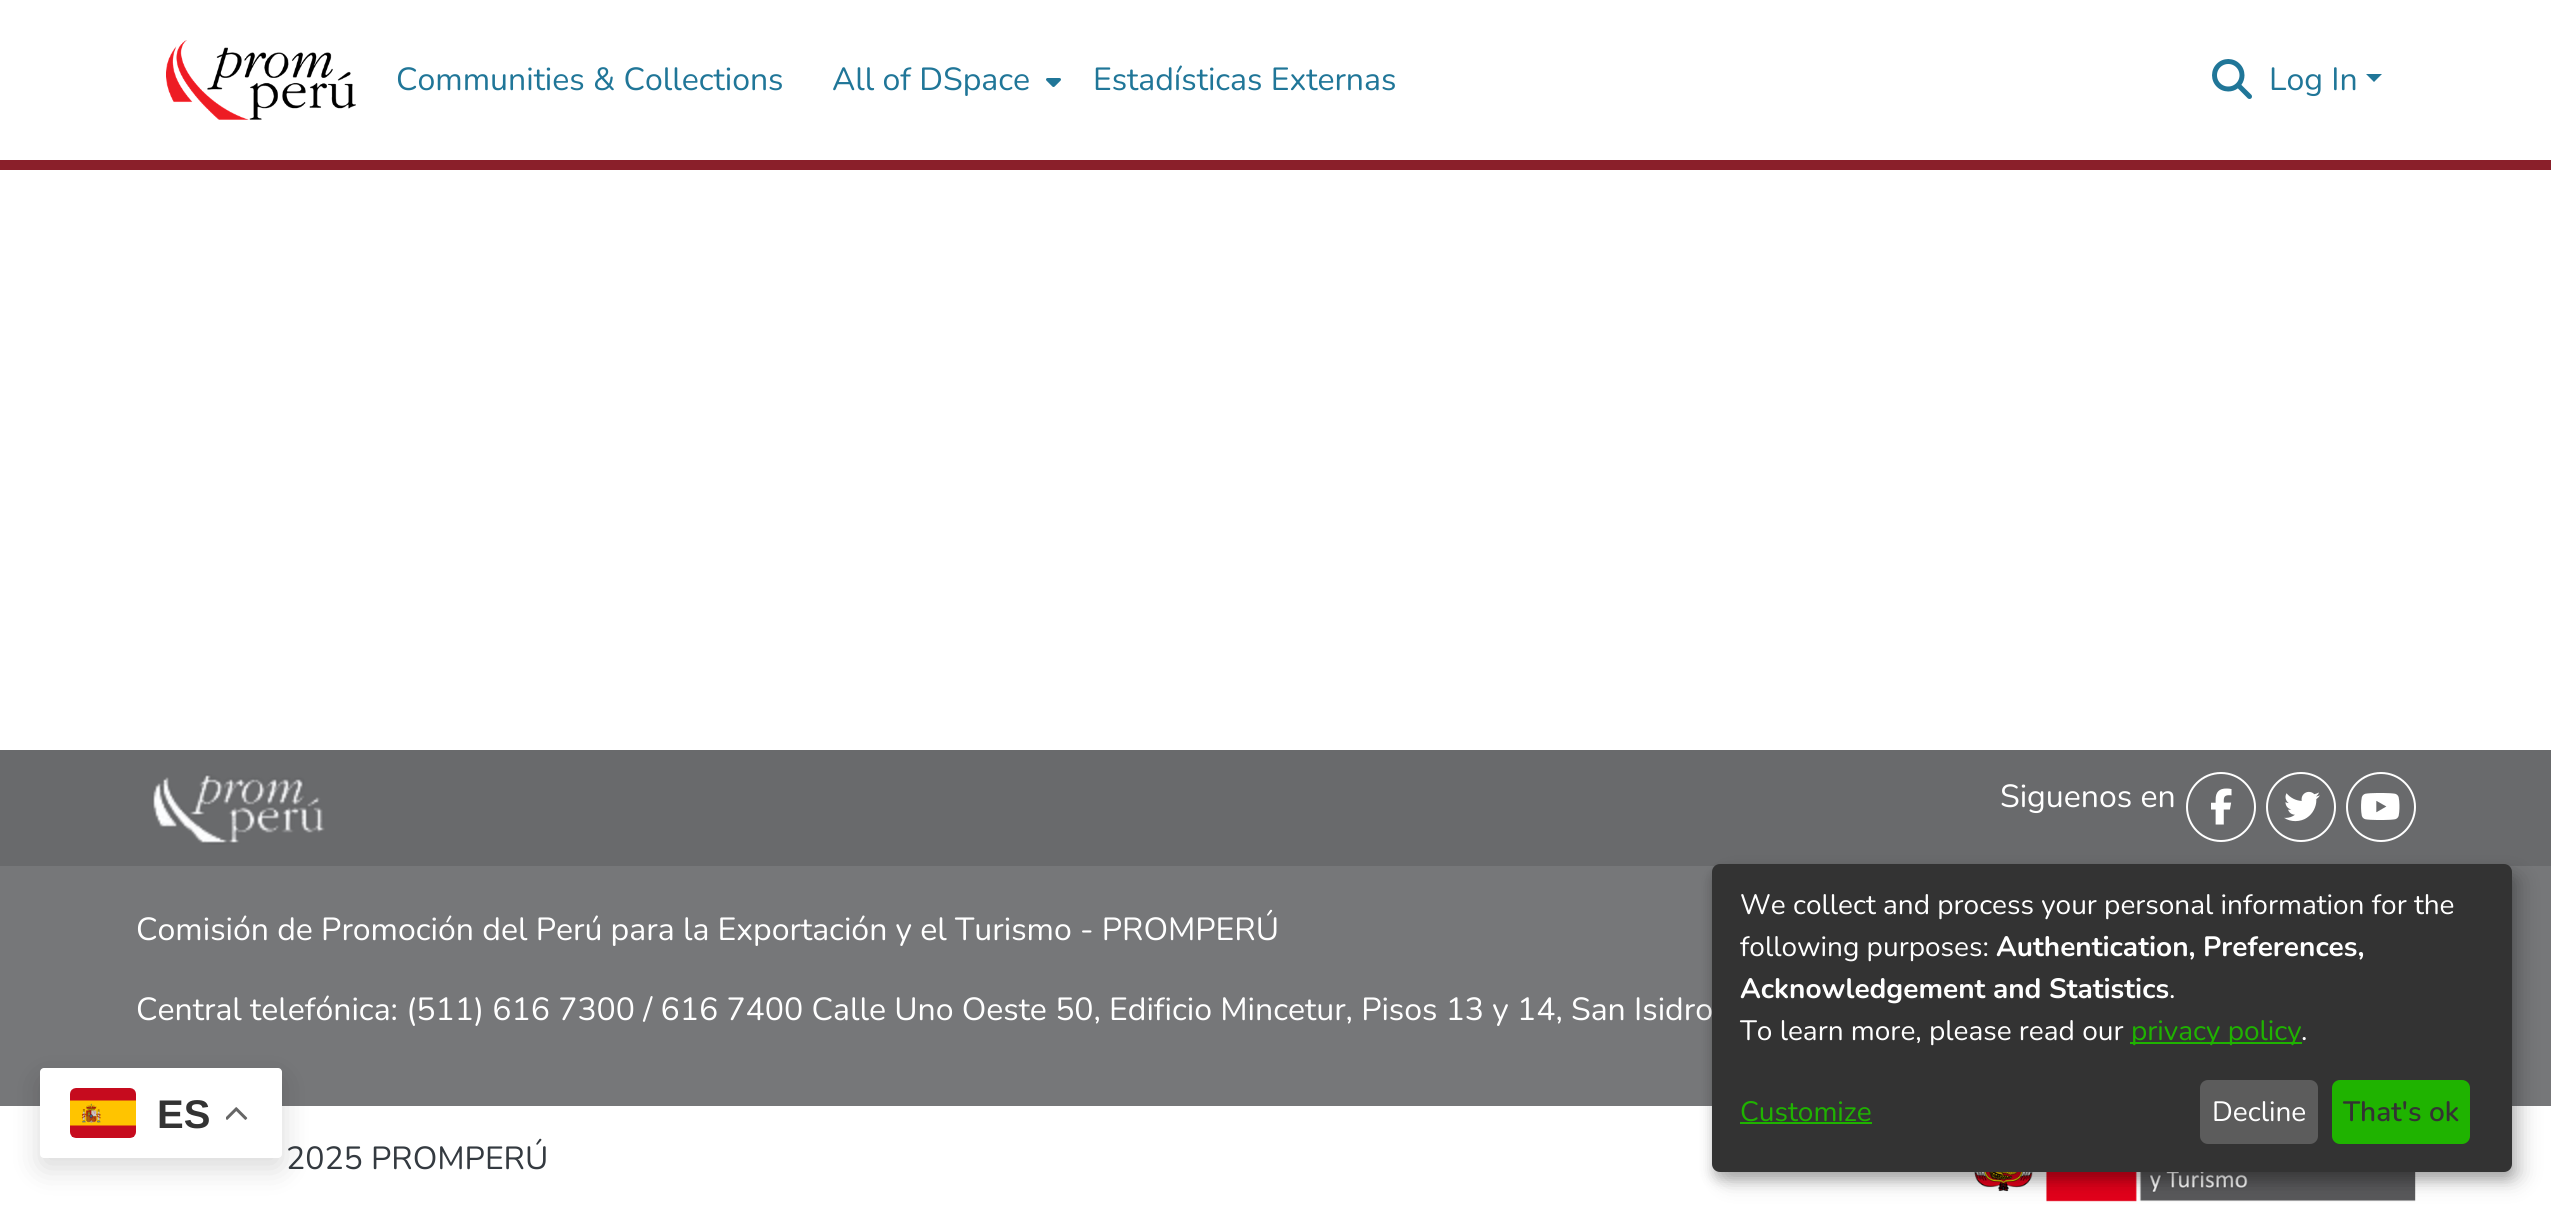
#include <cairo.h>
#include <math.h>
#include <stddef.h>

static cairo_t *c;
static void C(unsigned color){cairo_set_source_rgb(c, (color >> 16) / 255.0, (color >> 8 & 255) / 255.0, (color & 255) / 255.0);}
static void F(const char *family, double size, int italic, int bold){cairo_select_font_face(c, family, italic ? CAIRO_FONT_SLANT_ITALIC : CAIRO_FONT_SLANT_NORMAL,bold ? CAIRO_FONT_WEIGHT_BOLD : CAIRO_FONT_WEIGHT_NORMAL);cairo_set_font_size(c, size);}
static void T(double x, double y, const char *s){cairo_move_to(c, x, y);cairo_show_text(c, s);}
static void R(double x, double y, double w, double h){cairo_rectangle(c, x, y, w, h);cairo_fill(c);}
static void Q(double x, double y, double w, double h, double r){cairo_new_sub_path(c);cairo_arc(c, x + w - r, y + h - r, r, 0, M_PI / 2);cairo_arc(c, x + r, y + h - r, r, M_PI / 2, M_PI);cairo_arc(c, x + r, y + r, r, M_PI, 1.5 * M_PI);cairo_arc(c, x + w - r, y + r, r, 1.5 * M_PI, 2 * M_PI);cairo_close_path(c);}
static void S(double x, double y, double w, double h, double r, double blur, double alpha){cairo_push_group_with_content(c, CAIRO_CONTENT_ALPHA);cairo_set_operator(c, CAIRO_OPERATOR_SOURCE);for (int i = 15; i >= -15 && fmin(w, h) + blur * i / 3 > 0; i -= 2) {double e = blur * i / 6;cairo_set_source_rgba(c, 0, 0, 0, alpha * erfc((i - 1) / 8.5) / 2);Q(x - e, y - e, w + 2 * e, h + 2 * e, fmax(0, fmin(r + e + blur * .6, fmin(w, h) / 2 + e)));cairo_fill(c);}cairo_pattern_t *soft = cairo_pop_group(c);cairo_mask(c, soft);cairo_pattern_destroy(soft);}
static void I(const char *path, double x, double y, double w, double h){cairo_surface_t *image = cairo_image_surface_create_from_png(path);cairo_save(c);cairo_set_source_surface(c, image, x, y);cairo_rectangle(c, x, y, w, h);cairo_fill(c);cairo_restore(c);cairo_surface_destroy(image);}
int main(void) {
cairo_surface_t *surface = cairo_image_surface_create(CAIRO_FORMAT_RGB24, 2551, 1211);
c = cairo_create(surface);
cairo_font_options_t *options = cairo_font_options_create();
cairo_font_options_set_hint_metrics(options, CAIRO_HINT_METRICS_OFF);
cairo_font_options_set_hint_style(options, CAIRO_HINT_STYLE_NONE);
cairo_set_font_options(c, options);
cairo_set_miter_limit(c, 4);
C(0xffffff);
cairo_paint(c);
C(0x8a1f2a);
R(0,160,2551,10);
I("1.png",166,40,190,80);
F("Nunito",32,0,0);
C(0x207698);
T(396,90,"Communities & Collections");
T(832,90,"All of DSpace");
I("2.png",1046,78,15,9);
T(1093,90,"Estadísticas Externas");
I("3.png",2212,59,40,40);
T(2269,90,"Log In");
cairo_new_path(c);
cairo_move_to(c,2366,74);
cairo_line_to(c,2382,74);
cairo_line_to(c,2374,82);
cairo_close_path(c);
cairo_fill(c);
C(0x696a6c);
R(0,750,2551,116);
I("4.png",152,774,173,71);
C(0xffffff);
T(2000,807,"Siguenos en");
cairo_new_path(c);
cairo_arc(c,2221,807,34,0,2 * M_PI);
cairo_stroke(c);
I("5.png",2211,788,21,37);
cairo_arc(c,2301,807,34,0,2 * M_PI);
cairo_stroke(c);
I("6.png",2284,791,36,31);
cairo_arc(c,2381,807,34,0,2 * M_PI);
cairo_stroke(c);
I("7.png",2361,793,39,27);
C(0x767779);
R(0,866,2551,240);
C(0xffffff);
T(136,940,"Comisión de Promoción del Perú para la Exportación y el Turismo - PROMPERÚ");
T(136,1020,"Central telefónica: (511) 616 7300 / 616 7400 Calle Uno Oeste 50, Edificio Mincetur, Pisos 13 y 14, San Isidro");
C(0x343a40);
T(286,1169,"2025 PROMPERÚ");
I("8.png",1972,1172,444,30);
C(0x000000);
S(40,1078,242,90,4,15,.15);
C(0xffffff);
Q(40,1068,242,90,4);
cairo_fill(c);
I("9.png",70,1088,66,50);
F("Liberation Sans",40,0,1);
C(0x333333);
T(157,1128,"ES");
I("10.png",226,1107,22,13);
C(0x000000);
S(1722,874,800,308,8,10,.19);
S(1712,872,800,308,8,6,.2);
C(0x333333);
Q(1712,864,800,308,8);
cairo_fill(c);
F("Nunito",28,0,0);
C(0xffffff);
T(1740,914,"We collect and process your personal information for the");
T(1740,956,"following purposes:");
F("Nunito",28,0,1);
T(1996,956,"Authentication, Preferences,");
T(1740,998,"Acknowledgement and Statistics");
F("Nunito",28,0,0);
T(2169,998,".");
T(1740,1040,"To learn more, please read our");
C(0x1fb300);
R(2130,1042,172,2);
T(2131,1040,"privacy policy");
C(0xffffff);
T(2301,1040,".");
C(0x1fb300);
T(1740,1121,"Customize");
R(1740,1122,132,2);
C(0x5c5c5c);
Q(2200,1080,118,64,8);
cairo_fill(c);
C(0xffffff);
T(2212,1121,"Decline");
C(0x1fb300);
Q(2332,1080,138,64,8);
cairo_fill(c);
F("Nunito SemiBold",28,0,0);
C(0x333333);
T(2343,1121,"That's ok");
cairo_surface_write_to_png(surface, "o.png");
cairo_font_options_destroy(options);
cairo_destroy(c);
cairo_surface_destroy(surface);
return 0;
}
